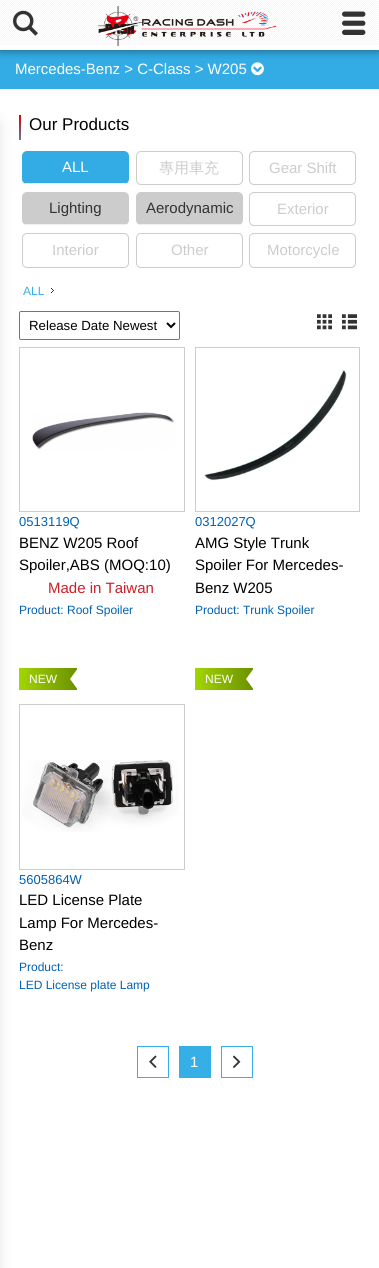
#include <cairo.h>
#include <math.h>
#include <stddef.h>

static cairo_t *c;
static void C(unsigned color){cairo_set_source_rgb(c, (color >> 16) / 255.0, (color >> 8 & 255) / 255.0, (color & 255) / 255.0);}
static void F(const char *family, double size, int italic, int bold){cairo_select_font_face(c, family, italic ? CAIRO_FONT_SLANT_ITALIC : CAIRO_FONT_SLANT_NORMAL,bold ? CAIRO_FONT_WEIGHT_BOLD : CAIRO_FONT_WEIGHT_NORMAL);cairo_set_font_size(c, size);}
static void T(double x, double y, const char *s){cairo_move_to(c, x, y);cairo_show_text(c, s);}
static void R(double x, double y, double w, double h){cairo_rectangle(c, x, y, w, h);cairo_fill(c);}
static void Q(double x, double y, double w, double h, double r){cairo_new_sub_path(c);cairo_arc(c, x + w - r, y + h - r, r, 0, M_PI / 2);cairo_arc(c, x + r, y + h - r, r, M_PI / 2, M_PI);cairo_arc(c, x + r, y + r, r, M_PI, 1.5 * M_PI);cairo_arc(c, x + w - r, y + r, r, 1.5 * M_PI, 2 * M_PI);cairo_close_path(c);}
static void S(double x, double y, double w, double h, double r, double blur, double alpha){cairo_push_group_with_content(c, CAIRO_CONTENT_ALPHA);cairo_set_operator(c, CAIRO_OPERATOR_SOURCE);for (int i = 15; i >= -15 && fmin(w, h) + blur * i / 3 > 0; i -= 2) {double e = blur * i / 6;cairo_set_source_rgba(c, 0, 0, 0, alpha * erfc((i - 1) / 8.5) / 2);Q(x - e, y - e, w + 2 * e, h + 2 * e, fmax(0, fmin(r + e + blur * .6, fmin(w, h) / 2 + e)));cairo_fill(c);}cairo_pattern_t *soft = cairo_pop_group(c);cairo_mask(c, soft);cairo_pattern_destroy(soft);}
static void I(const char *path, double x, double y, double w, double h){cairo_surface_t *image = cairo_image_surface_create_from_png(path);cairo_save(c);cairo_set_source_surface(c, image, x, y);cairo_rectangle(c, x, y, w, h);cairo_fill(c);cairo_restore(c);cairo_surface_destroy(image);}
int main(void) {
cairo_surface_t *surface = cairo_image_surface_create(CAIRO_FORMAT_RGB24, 379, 1268);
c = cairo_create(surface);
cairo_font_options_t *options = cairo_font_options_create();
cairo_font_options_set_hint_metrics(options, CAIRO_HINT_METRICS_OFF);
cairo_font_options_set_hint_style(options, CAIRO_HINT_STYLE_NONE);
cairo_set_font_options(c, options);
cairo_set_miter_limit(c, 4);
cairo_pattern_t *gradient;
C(0xffffff);
cairo_paint(c);
C(0x33ace5);
R(0,50,379,39);
I("5.png",251,62,13,14);
cairo_save(c);
cairo_rectangle(c,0,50,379,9);
cairo_clip(c);
C(0x000000);
S(0,0,379,50,0,5,.5);
cairo_restore(c);
I("1.png",0,0,379,45);
I("2.png",13,10,25,26);
I("3.png",98,6,179,40);
I("4.png",342,11,24,24);
F("Liberation Sans",15,0,0);
C(0xffffff);
T(15,74,"Mercedes-Benz > C-Class > W205");
I("6.png",19,115,2,25);
Q(19.5,311.5,160,28,1.5);
C(0x767676);
cairo_set_line_width(c,1);
cairo_stroke(c);
cairo_rectangle(c,19.5,347.5,165,164);
C(0xcccccc);
cairo_stroke(c);
gradient = cairo_pattern_create_linear(19,679,77,679);
cairo_pattern_add_color_stop_rgba(gradient,0,0.635,0.843,0,1);
cairo_pattern_add_color_stop_rgba(gradient,1,0.424,0.565,0,1);
cairo_set_source(c,gradient);
cairo_pattern_destroy(gradient);
R(19,668,58,22);
cairo_rectangle(c,19.5,704.5,165,165);
C(0xcccccc);
cairo_stroke(c);
C(0x000000);
S(-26,125,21,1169,0,8.5,.2);
F("Liberation Sans",17,0,0);
C(0x000000);
T(29,130,"Our Products");
C(0x33ace5);
Q(22,151,107,33,5);
cairo_fill(c);
C(0xeeeeee);
R(25,183,102,1);
F("Liberation Sans",15,0,0);
C(0xffffff);
T(62,172,"ALL");
Q(136.5,151.5,106,33,4.5);
C(0xcccccc);
cairo_stroke(c);
F("WenQuanYi Zen Hei Medium",15,0,0);
T(159,173,"專用車充");
Q(249.5,151.5,106,33,4.5);
cairo_stroke(c);
F("Liberation Sans",15,0,0);
T(269,173,"Gear Shift");
Q(22,192,107,33,5);
cairo_fill(c);
C(0xeeeeee);
R(25,224,102,1);
C(0x333333);
T(49,213,"Lighting");
C(0xcccccc);
Q(136,192,107,33,5);
cairo_fill(c);
C(0xeeeeee);
R(139,224,102,1);
C(0x333333);
T(146,213,"Aerodynamic");
Q(249.5,192.5,106,33,4.5);
C(0xcccccc);
cairo_stroke(c);
T(277,214,"Exterior");
Q(22.5,233.5,106,34,4.5);
cairo_stroke(c);
T(52,255,"Interior");
Q(136.5,233.5,106,34,4.5);
cairo_stroke(c);
T(171,255,"Other");
Q(249.5,233.5,106,34,4.5);
cairo_stroke(c);
T(267,255,"Motorcycle");
I("7.png",51,288,3,5);
F("Liberation Sans",12,0,0);
C(0x36afe6);
T(23,295,"ALL");
cairo_new_path(c);
cairo_move_to(c,167,323);
cairo_line_to(c,171,327);
cairo_line_to(c,175,323);
C(0x000000);
cairo_set_line_width(c,2);
cairo_stroke(c);
F("Liberation Sans",13.25,0,0);
T(29,330,"Release Date Newest");
I("8.png",317,314,15,16);
I("9.png",342,314,15,16);
I("10.png",32,412,143,38);
F("Liberation Sans",13,0,0);
C(0x0061b2);
T(19,526,"0513119Q");
F("Liberation Sans",15,0,0);
C(0x000000);
T(19,548,"BENZ W205 Roof");
T(19,570,"Spoiler,ABS (MOQ:10)");
C(0xcb1f26);
T(48,593,"Made in Taiwan");
F("Liberation Sans",12,0,0);
C(0x0061b2);
T(19,614,"Product: Roof Spoiler");
C(0xffffff);
T(29,683,"NEW");
cairo_new_path(c);
cairo_move_to(c,78,668);
cairo_line_to(c,78,690);
cairo_line_to(c,70,679);
cairo_close_path(c);
cairo_fill(c);
cairo_rectangle(c,195.5,347.5,164,164);
C(0xcccccc);
cairo_set_line_width(c,1);
cairo_stroke(c);
I("11.png",204,370,143,111);
F("Liberation Sans",13,0,0);
C(0x0061b2);
T(195,526,"0312027Q");
F("Liberation Sans",15,0,0);
C(0x000000);
T(195,548,"AMG Style Trunk");
T(195,570,"Spoiler For Mercedes-");
T(195,593,"Benz W205");
F("Liberation Sans",12,0,0);
C(0x0061b2);
T(195,614,"Product: Trunk Spoiler");
gradient = cairo_pattern_create_linear(195,679,253,679);
cairo_pattern_add_color_stop_rgba(gradient,0,0.635,0.843,0,1);
cairo_pattern_add_color_stop_rgba(gradient,1,0.424,0.565,0,1);
cairo_set_source(c,gradient);
cairo_pattern_destroy(gradient);
R(195,668,58,22);
C(0xffffff);
T(205,683,"NEW");
cairo_new_path(c);
cairo_move_to(c,254,668);
cairo_line_to(c,254,690);
cairo_line_to(c,246,679);
cairo_close_path(c);
cairo_fill(c);
I("12.png",22,760,157,72);
F("Liberation Sans",13,0,0);
C(0x0061b2);
T(19,884,"5605864W");
F("Liberation Sans",15,0,0);
C(0x000000);
T(19,905,"LED License Plate");
T(19,928,"Lamp For Mercedes-");
T(19,950,"Benz");
F("Liberation Sans",12,0,0);
C(0x0061b2);
T(19,971,"Product:");
T(19,989,"LED License plate Lamp");
cairo_rectangle(c,137.5,1046.5,31,31);
C(0x36afe6);
cairo_stroke(c);
I("13.png",149,1055,8,13);
R(179,1046,32,32);
F("Liberation Sans",15,0,0);
C(0xffffff);
T(190,1067,"1");
cairo_rectangle(c,221.5,1046.5,31,31);
C(0x36afe6);
cairo_stroke(c);
I("14.png",233,1055,8,13);
cairo_surface_write_to_png(surface, "o.png");
cairo_font_options_destroy(options);
cairo_destroy(c);
cairo_surface_destroy(surface);
return 0;
}
